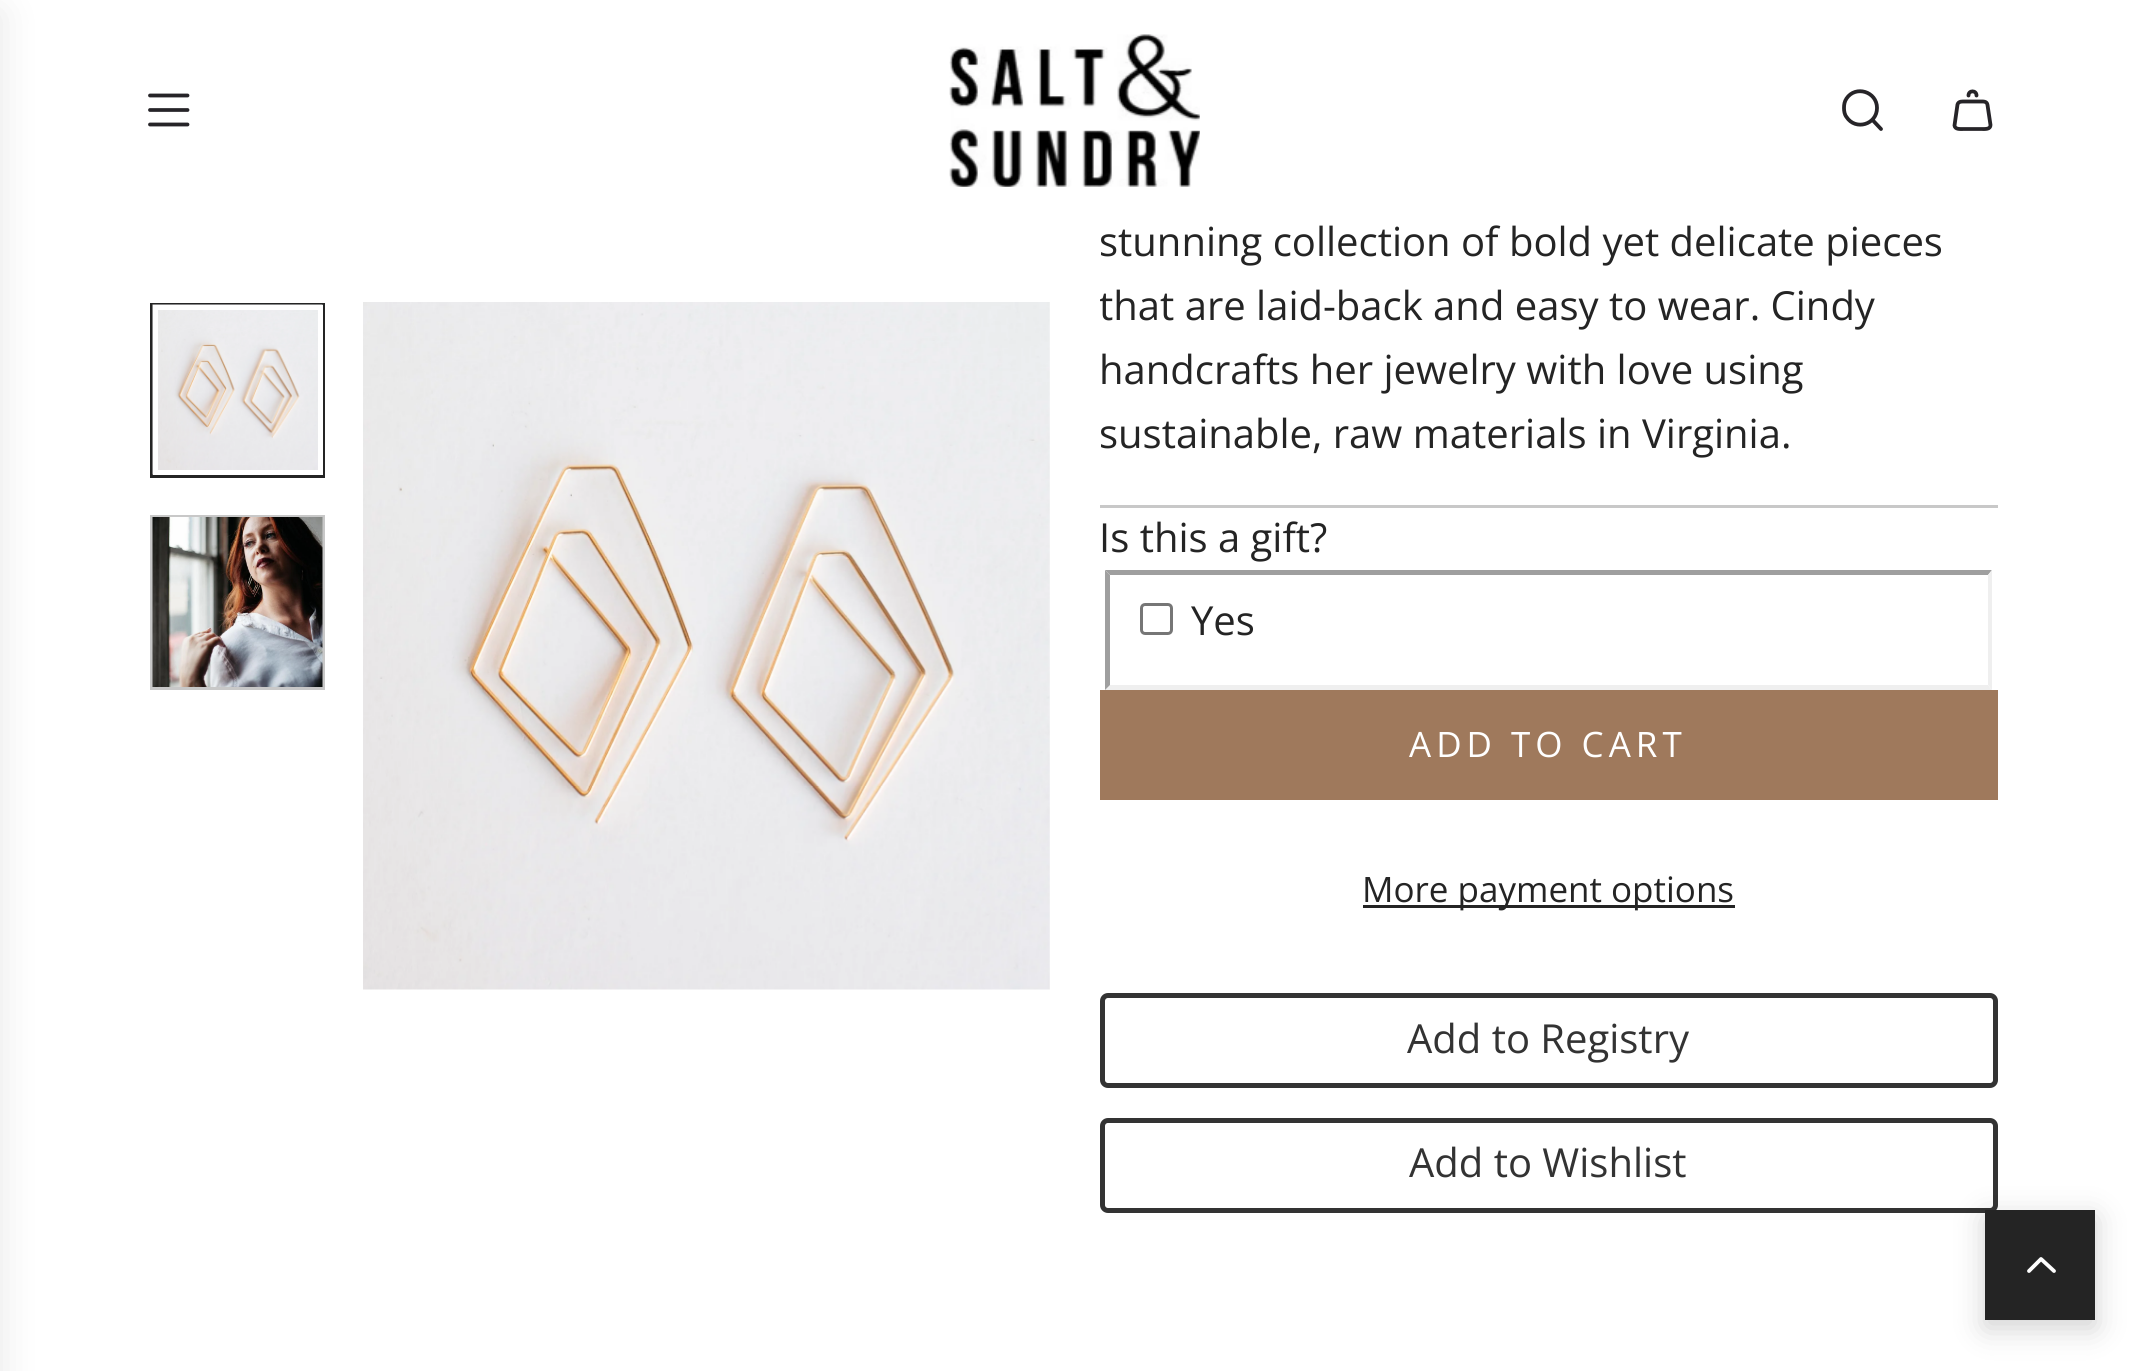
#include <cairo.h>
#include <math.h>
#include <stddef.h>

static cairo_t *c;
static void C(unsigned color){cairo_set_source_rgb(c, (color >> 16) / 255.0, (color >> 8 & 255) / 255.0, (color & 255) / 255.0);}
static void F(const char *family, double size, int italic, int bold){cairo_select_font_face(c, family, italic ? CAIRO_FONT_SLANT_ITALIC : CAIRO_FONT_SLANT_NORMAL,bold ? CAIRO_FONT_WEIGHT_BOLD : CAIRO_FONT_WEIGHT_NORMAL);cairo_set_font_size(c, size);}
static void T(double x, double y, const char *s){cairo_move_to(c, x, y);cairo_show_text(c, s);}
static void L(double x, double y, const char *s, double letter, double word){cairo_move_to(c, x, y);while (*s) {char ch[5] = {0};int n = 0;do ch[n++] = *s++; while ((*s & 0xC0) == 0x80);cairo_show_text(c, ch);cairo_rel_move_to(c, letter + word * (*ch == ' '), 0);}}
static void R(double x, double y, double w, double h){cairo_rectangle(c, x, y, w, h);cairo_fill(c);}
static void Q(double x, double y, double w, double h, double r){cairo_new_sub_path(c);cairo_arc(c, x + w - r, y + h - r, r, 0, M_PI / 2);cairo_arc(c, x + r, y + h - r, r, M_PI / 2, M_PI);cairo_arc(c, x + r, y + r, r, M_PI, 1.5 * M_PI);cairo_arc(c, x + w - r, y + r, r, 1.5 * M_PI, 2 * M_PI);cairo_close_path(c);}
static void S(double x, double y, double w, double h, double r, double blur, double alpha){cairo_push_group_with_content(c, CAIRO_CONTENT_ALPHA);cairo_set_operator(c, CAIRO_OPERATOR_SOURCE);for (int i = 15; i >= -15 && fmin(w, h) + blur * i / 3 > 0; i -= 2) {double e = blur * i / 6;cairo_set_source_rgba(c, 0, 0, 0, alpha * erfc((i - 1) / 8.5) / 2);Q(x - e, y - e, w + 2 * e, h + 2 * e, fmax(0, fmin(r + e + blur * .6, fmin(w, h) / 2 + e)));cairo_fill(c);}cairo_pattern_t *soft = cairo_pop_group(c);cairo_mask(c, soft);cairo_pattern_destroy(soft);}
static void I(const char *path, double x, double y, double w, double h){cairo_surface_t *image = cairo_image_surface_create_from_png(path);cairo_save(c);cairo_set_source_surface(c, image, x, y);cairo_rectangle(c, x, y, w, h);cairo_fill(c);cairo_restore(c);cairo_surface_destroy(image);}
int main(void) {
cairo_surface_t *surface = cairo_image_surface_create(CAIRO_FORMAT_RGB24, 2146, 1371);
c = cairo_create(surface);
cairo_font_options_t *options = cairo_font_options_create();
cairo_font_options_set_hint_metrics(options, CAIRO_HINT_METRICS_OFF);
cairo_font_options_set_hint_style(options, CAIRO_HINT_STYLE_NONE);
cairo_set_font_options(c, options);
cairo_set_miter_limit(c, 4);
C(0xffffff);
cairo_paint(c);
C(0x000000);
S(-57,13,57,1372,0,19,.1);
cairo_new_path(c);
cairo_move_to(c,150,95.5);
cairo_line_to(c,187.5,95.5);
cairo_move_to(c,150,110);
cairo_line_to(c,187.5,110);
cairo_move_to(c,150,124.5);
cairo_line_to(c,187.5,124.5);
C(0x262428);
cairo_set_line_width(c,3.8);
cairo_set_line_cap(c,CAIRO_LINE_CAP_ROUND);
cairo_set_line_join(c,CAIRO_LINE_JOIN_ROUND);
cairo_stroke(c);
I("1.png",949,34,251,153);
cairo_new_path(c);
cairo_move_to(c,1873,120.5);
cairo_line_to(c,1881,129);
cairo_move_to(c,1844,108);
cairo_curve_to(c,1844,111,1844.5,114.5,1846.5,117);
cairo_curve_to(c,1855.5,131,1877,124.5,1877,108);
cairo_curve_to(c,1877,91.5,1855.5,85,1846.5,98.5);
cairo_curve_to(c,1844.5,101.5,1844,104.5,1844,108);
cairo_close_path(c);
cairo_stroke(c);
cairo_new_path(c);
cairo_move_to(c,1976.5,95.5);
cairo_curve_to(c,1976.5,90,1968.5,90,1968.5,95.5);
cairo_move_to(c,1987.5,105);
cairo_line_to(c,1990.5,125);
cairo_curve_to(c,1990.5,129.5,1985,129,1982,129);
cairo_line_to(c,1963,129);
cairo_curve_to(c,1960,129,1955,129.5,1954.5,125.5);
cairo_line_to(c,1957.5,104.5);
cairo_curve_to(c,1958.5,101,1962.5,101.5,1965,101.5);
cairo_line_to(c,1980,101.5);
cairo_curve_to(c,1983,101.5,1987,101,1987.5,105);
cairo_close_path(c);
cairo_stroke(c);
cairo_rectangle(c,151.5,304.5,172,172);
C(0x242424);
cairo_set_line_width(c,3);
cairo_set_line_cap(c,CAIRO_LINE_CAP_BUTT);
cairo_set_line_join(c,CAIRO_LINE_JOIN_MITER);
cairo_stroke(c);
I("2.png",152,304,171,171);
cairo_rectangle(c,155.5,307.5,165,165);
C(0xffffff);
cairo_set_line_width(c,5);
cairo_stroke(c);
cairo_rectangle(c,151.5,516.5,172,172);
C(0xc8c8c8);
cairo_set_line_width(c,3);
cairo_stroke(c);
I("3.png",152,517,171,170);
I("4.png",363,302,687,688);
R(1100,505,898,3);
F("Open Sans",40,0,0);
C(0x242424);
T(1099,256,"stunning collection of bold yet delicate pieces");
cairo_save(c);
cairo_rectangle(c,1100,0,898,505);
cairo_clip(c);
T(1099,320,"that are laid-back and easy to wear. Cindy");
cairo_restore(c);
T(1099,384,"handcrafts her jewelry with love using");
T(1099,448,"sustainable, raw materials in Virginia.");
T(1099,552,"Is this a gift?");
C(0x9f9f9f);
cairo_new_path(c);
cairo_move_to(c,1105,570);
cairo_line_to(c,1992,570);
cairo_line_to(c,1988,575);
cairo_line_to(c,1110,575);
cairo_close_path(c);
cairo_fill(c);
C(0xefefef);
cairo_new_path(c);
cairo_move_to(c,1992,570);
cairo_line_to(c,1992,690);
cairo_line_to(c,1988,685);
cairo_line_to(c,1988,575);
cairo_close_path(c);
cairo_fill(c);
cairo_new_path(c);
cairo_move_to(c,1992,690);
cairo_line_to(c,1105,690);
cairo_line_to(c,1110,685);
cairo_line_to(c,1988,685);
cairo_close_path(c);
cairo_fill(c);
C(0x9f9f9f);
cairo_new_path(c);
cairo_move_to(c,1105,690);
cairo_line_to(c,1105,570);
cairo_line_to(c,1110,575);
cairo_line_to(c,1110,685);
cairo_close_path(c);
cairo_fill(c);
Q(1141.5,604.5,30,29,3.5);
C(0x767676);
cairo_stroke(c);
C(0x242424);
T(1191,635,"Yes");
C(0x9f795c);
R(1100,690,898,110);
F("Open Sans",35,0,0);
C(0xffffff);
L(1409,757,"ADD TO CART",5,0);
C(0x242424);
R(1363,905,372,3);
T(1362,902,"More payment options");
Q(1102.5,995.5,893,90,5.5);
C(0x333333);
cairo_set_line_width(c,5);
cairo_stroke(c);
F("Open Sans",40,0,0);
T(1407,1053,"Add to Registry");
Q(1102.5,1120.5,893,90,5.5);
cairo_stroke(c);
T(1409,1177,"Add to Wishlist");
C(0x000000);
S(1985,1218,110,110,0,15,.18);
C(0x242424);
R(1985,1210,110,110);
cairo_new_path(c);
cairo_move_to(c,2029,1271);
cairo_line_to(c,2041,1259);
cairo_line_to(c,2054,1271);
C(0xffffff);
cairo_set_line_width(c,3.8);
cairo_set_line_cap(c,CAIRO_LINE_CAP_ROUND);
cairo_set_line_join(c,CAIRO_LINE_JOIN_ROUND);
cairo_stroke(c);
cairo_surface_write_to_png(surface, "o.png");
cairo_font_options_destroy(options);
cairo_destroy(c);
cairo_surface_destroy(surface);
return 0;
}
